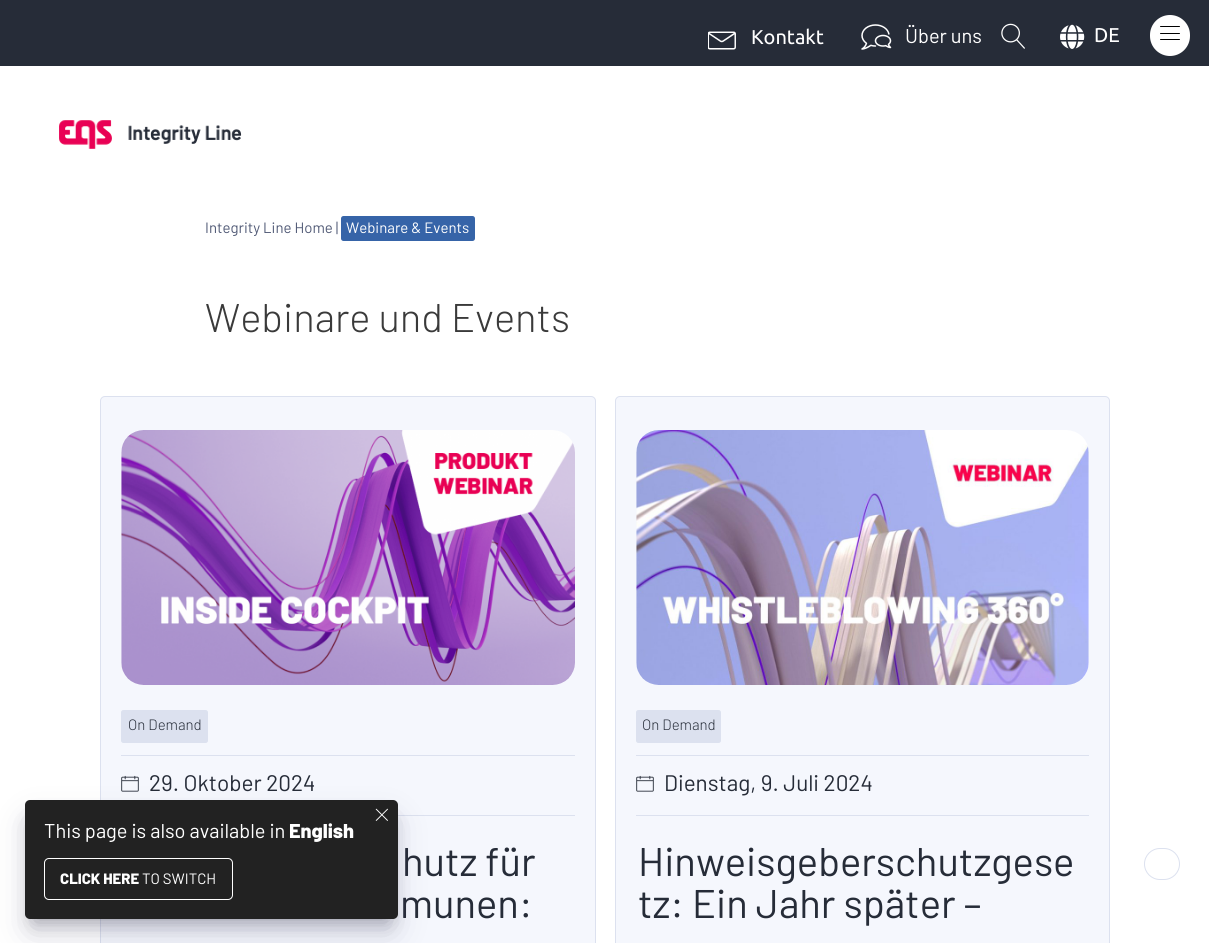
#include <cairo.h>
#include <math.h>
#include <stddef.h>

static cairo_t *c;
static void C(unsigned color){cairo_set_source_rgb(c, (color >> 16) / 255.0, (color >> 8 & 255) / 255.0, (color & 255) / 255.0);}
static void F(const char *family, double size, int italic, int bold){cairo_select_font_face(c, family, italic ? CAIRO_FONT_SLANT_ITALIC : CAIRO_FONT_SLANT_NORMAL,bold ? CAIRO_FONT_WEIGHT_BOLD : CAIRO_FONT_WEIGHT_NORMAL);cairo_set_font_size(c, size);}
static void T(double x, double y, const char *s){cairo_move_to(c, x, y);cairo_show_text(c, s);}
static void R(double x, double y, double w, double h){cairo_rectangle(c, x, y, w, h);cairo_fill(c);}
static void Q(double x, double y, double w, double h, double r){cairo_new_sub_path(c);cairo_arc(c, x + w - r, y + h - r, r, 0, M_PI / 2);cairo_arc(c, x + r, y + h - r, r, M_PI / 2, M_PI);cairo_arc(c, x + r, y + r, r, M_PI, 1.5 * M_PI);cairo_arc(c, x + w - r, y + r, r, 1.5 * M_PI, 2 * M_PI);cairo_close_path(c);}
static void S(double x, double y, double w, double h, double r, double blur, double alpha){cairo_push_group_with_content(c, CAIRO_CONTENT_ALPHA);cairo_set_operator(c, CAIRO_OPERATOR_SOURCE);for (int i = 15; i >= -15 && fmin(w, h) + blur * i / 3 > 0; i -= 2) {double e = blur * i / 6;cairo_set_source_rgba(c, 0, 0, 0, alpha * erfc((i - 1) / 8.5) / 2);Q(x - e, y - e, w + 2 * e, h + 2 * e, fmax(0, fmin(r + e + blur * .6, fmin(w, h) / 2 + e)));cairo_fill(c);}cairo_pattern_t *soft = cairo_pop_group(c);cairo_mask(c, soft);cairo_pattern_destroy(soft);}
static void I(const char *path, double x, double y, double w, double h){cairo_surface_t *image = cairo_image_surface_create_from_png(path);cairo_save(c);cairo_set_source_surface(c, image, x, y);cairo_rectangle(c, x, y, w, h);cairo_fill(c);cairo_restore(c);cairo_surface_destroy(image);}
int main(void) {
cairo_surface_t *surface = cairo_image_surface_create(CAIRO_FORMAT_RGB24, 1209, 943);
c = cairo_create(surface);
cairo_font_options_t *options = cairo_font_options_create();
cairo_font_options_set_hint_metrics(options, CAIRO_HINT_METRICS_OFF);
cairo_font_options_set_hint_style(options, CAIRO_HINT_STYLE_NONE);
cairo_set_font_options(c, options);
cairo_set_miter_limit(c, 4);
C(0xffffff);
cairo_paint(c);
C(0x262c38);
R(0,0,1209,66);
I("1.png",708,31,28,19);
F("Ubuntu",20,0,0);
C(0xffffff);
T(751,44,"Kontakt");
I("2.png",861,24,31,26);
F("Barlow",20,0,0);
T(905,43,"Über uns");
I("3.png",1001,23,24,26);
I("4.png",1060,24,25,25);
F("Ubuntu",20,0,0);
T(1094,42,"DE");
Q(1150,15,40,41,20);
cairo_fill(c);
C(0x000000);
Q(1160,33,20,1,.5);
cairo_fill(c);
Q(1160,26,20,1,.5);
cairo_fill(c);
Q(1160,39,20,1,.5);
cairo_fill(c);
I("5.png",59,120,183,29);
F("Barlow",15,0,0);
C(0x515a76);
T(205,233,"Integrity Line Home |");
C(0x3664a8);
Q(341,216,134,25,2.5);
cairo_fill(c);
C(0xffffff);
T(346,233,"Webinare & Events");
F("Barlow Light",40,0,0);
C(0x3a3a3a);
T(205,332,"Webinare und Events");
C(0xf5f7fd);
Q(100.5,396.5,495,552,4.5);
cairo_fill_preserve(c);
C(0xdce1ef);
cairo_set_line_width(c,1);
cairo_stroke(c);
I("6.png",121,430,454,255);
Q(121.5,710.5,86,32,2);
cairo_fill_preserve(c);
cairo_stroke(c);
F("Barlow Light",15,0,0);
C(0x262c38);
T(128,730,"On Demand");
C(0xdce1ef);
R(121,755,454,1);
R(398,815,177,1);
I("7.png",121,775,18,17);
F("Barlow",22.5,0,0);
C(0x262c38);
T(149,791,"29. Oktober 2024");
F("Barlow",40,0,0);
T(402,876,"hutz für");
T(400,918,"munen:");
C(0xf5f7fd);
Q(615.5,396.5,494,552,4.5);
cairo_fill_preserve(c);
C(0xdce1ef);
cairo_stroke(c);
I("8.png",636,430,453,255);
Q(636.5,710.5,84,32,2);
cairo_fill_preserve(c);
cairo_stroke(c);
F("Barlow Light",15,0,0);
C(0x262c38);
T(642,730,"On Demand");
C(0xdce1ef);
R(636,755,453,1);
R(636,815,453,1);
I("7.png",636,775,18,17);
F("Barlow",22.5,0,0);
C(0x262c38);
T(664,791,"Dienstag, 9. Juli 2024");
F("Barlow",40,0,0);
T(638,876,"Hinweisgeberschutzgese");
T(638,918,"tz: Ein Jahr später –");
Q(1144.5,848.5,35,31,15.5);
C(0xdce1ef);
cairo_stroke(c);
C(0x000000);
S(35,820,353,99,0,10,.3);
C(0x32325d);
S(31,823,360,106,0,17,.25);
C(0x222222);
Q(25,800,373,119,5);
cairo_fill(c);
I("9.png",375,808,13,13);
F("Barlow",20,0,0);
C(0xffffff);
T(44,838,"This page is also available in");
F("Barlow ExtraBold",20,0,0);
T(289,838,"English");
Q(44.5,858.5,188,41,4.5);
cairo_stroke(c);
F("Barlow ExtraBold",15,0,0);
T(60,884,"CLICK HERE");
F("Barlow",15,0,0);
T(142,884,"TO SWITCH");
cairo_surface_write_to_png(surface, "o.png");
cairo_font_options_destroy(options);
cairo_destroy(c);
cairo_surface_destroy(surface);
return 0;
}
